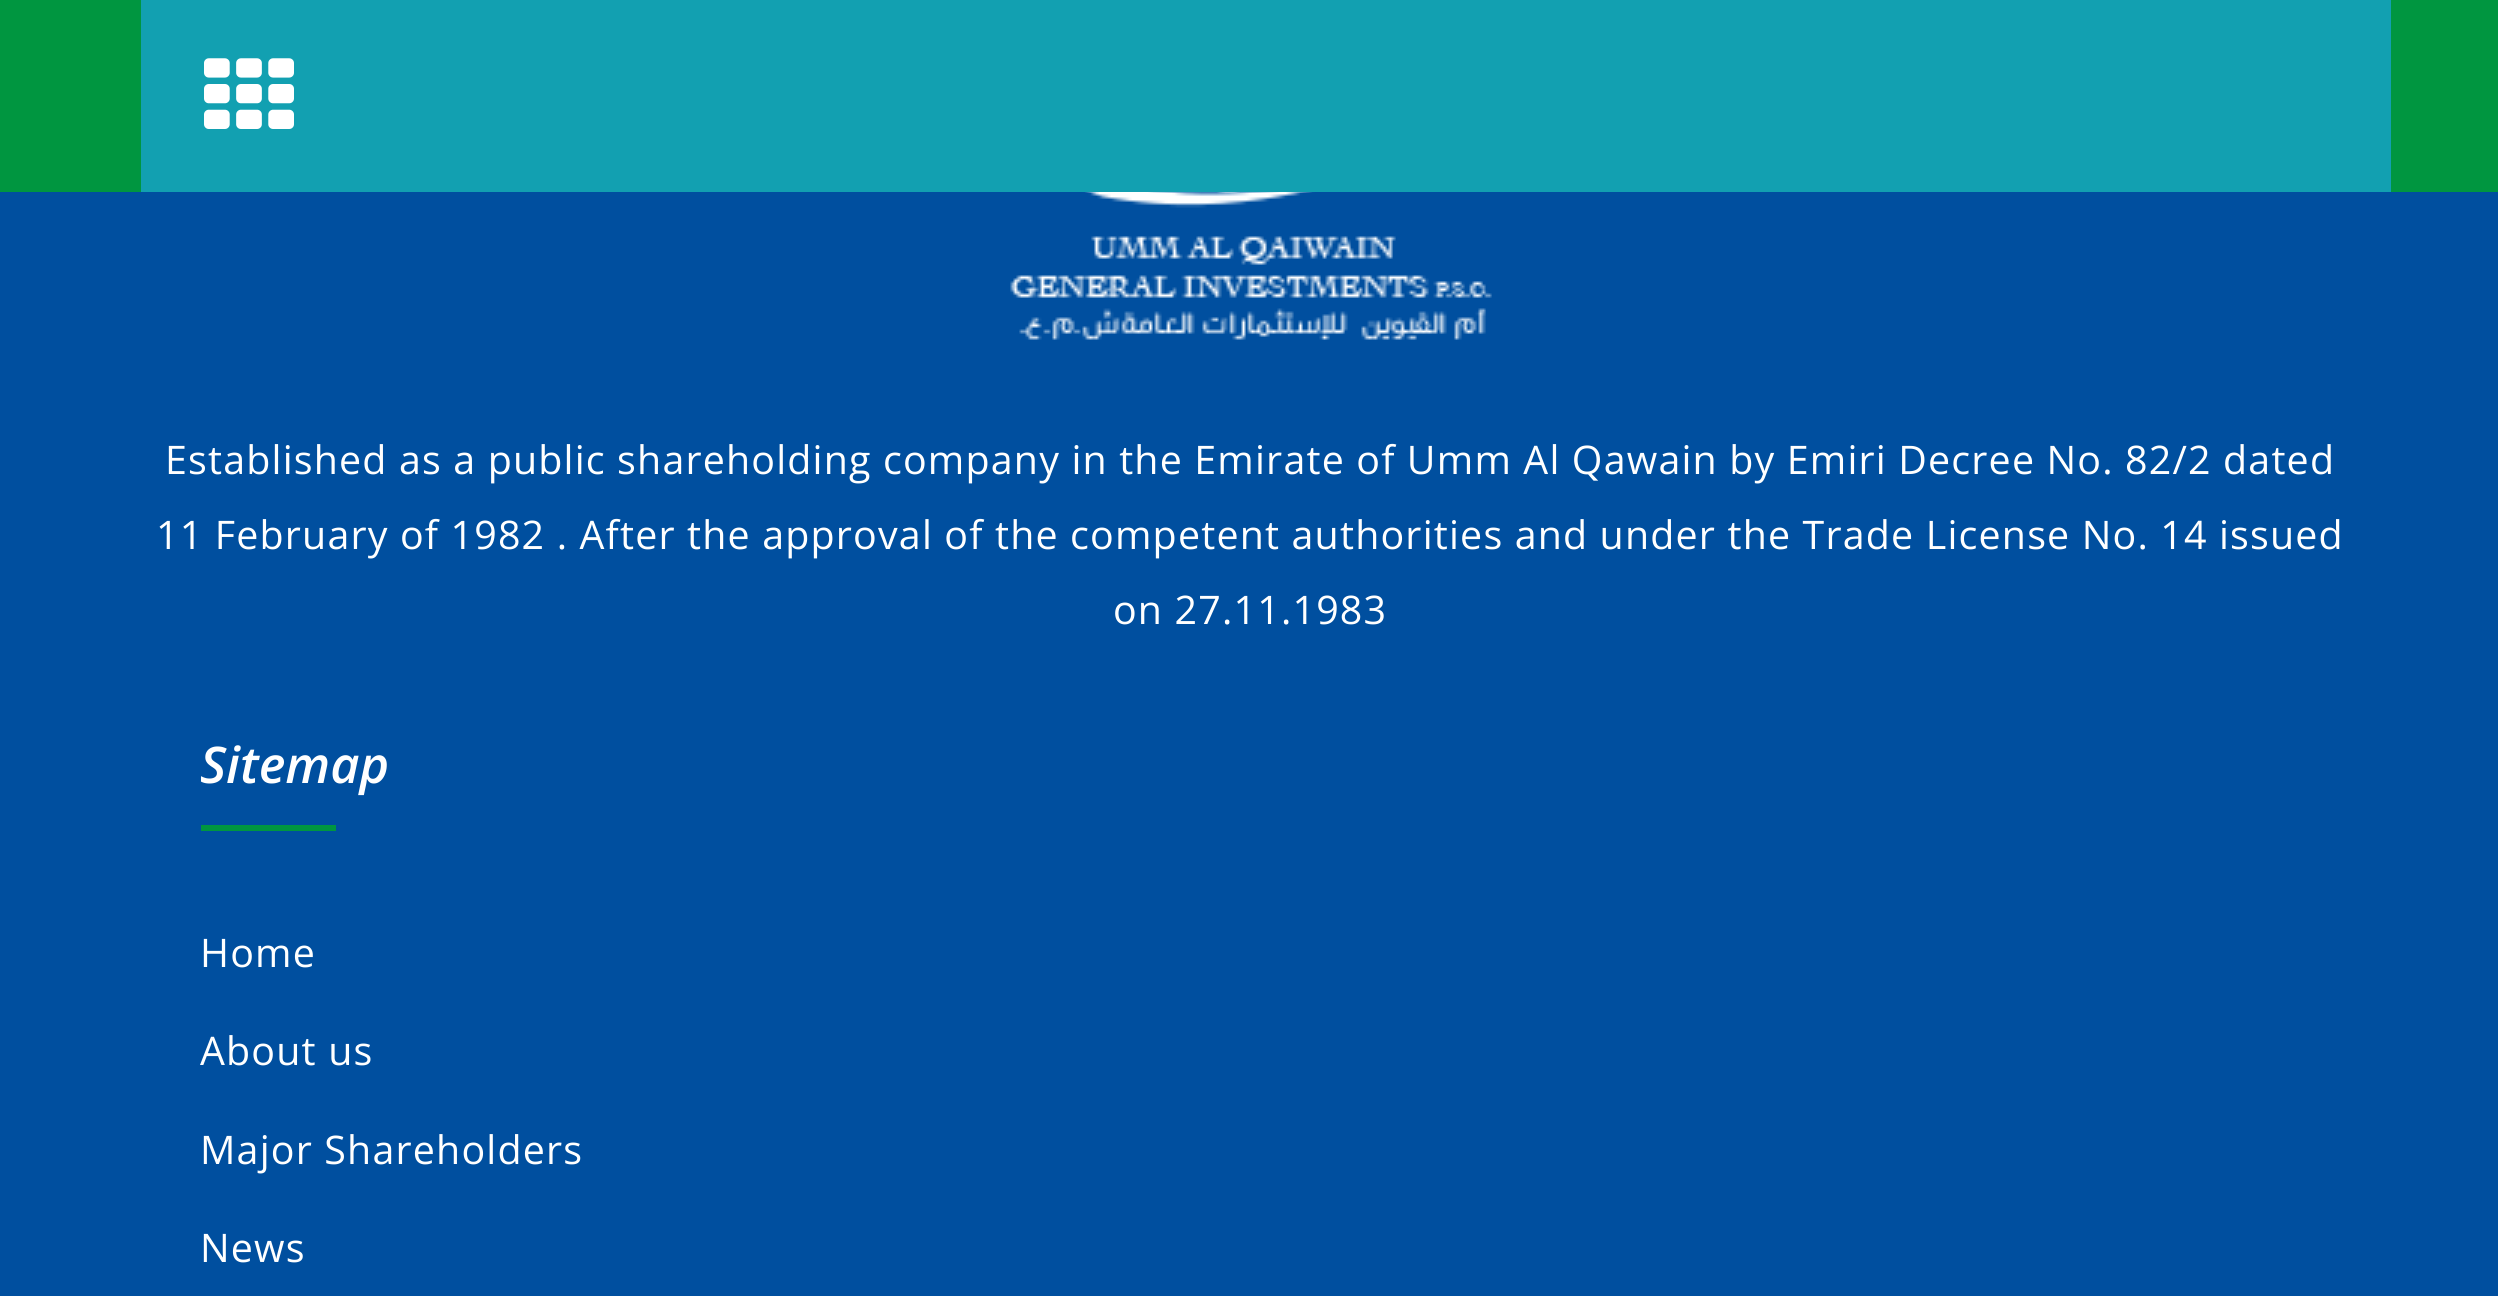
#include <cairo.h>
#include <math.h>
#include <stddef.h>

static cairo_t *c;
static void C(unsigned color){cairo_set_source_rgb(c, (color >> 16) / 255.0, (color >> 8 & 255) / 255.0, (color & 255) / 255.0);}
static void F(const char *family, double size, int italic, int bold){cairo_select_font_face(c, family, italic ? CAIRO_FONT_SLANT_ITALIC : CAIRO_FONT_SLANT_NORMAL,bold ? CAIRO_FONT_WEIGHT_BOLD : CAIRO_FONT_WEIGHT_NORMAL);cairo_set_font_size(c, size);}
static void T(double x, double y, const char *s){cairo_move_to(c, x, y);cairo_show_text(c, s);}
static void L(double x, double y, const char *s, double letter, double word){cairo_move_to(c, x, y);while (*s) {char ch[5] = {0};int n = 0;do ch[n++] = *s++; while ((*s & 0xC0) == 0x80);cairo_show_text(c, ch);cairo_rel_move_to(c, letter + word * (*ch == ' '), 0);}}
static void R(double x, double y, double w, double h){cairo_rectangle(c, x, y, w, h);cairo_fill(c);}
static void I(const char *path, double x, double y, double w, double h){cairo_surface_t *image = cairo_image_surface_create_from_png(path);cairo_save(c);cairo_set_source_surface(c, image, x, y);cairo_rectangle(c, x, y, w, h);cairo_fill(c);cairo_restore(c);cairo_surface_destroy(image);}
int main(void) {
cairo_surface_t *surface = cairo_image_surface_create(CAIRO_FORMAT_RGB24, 2498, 1296);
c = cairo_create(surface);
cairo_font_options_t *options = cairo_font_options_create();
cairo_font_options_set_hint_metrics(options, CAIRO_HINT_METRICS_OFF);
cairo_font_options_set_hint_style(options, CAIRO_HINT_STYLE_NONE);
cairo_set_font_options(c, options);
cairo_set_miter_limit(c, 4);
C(0x004f9f);
cairo_paint(c);
C(0x009640);
R(0,0,2498,192);
C(0x12a0b1);
R(141,0,2250,192);
I("1.png",204,58,90,71);
I("2.png",1010,192,482,148);
F("Open Sans",39.38,0,0);
C(0xffffff);
L(165,474,"Established as a public shareholding company in the Emirate of Umm Al Qawain by Emiri Decree No. 82/2 dated",1.18,-.1);
L(156,549,"11 February of 1982 . After the approval of the competent authorities and under the Trade License No. 14 issued",1.18,-.1);
L(1113,624,"on 27.11.1983",1.18,0);
F("Open Sans SemiBold",50.5,1,0);
T(200,783,"Sitemap");
C(0x009640);
R(201,825,135,6);
F("Open Sans",39.38,0,0);
C(0xffffff);
L(200,967,"Home",1.18,0);
L(200,1065,"About us",1.18,0);
L(200,1164,"Major Shareholders",1.18,0);
L(200,1262,"News",1.18,0);
cairo_surface_write_to_png(surface, "o.png");
cairo_font_options_destroy(options);
cairo_destroy(c);
cairo_surface_destroy(surface);
return 0;
}
